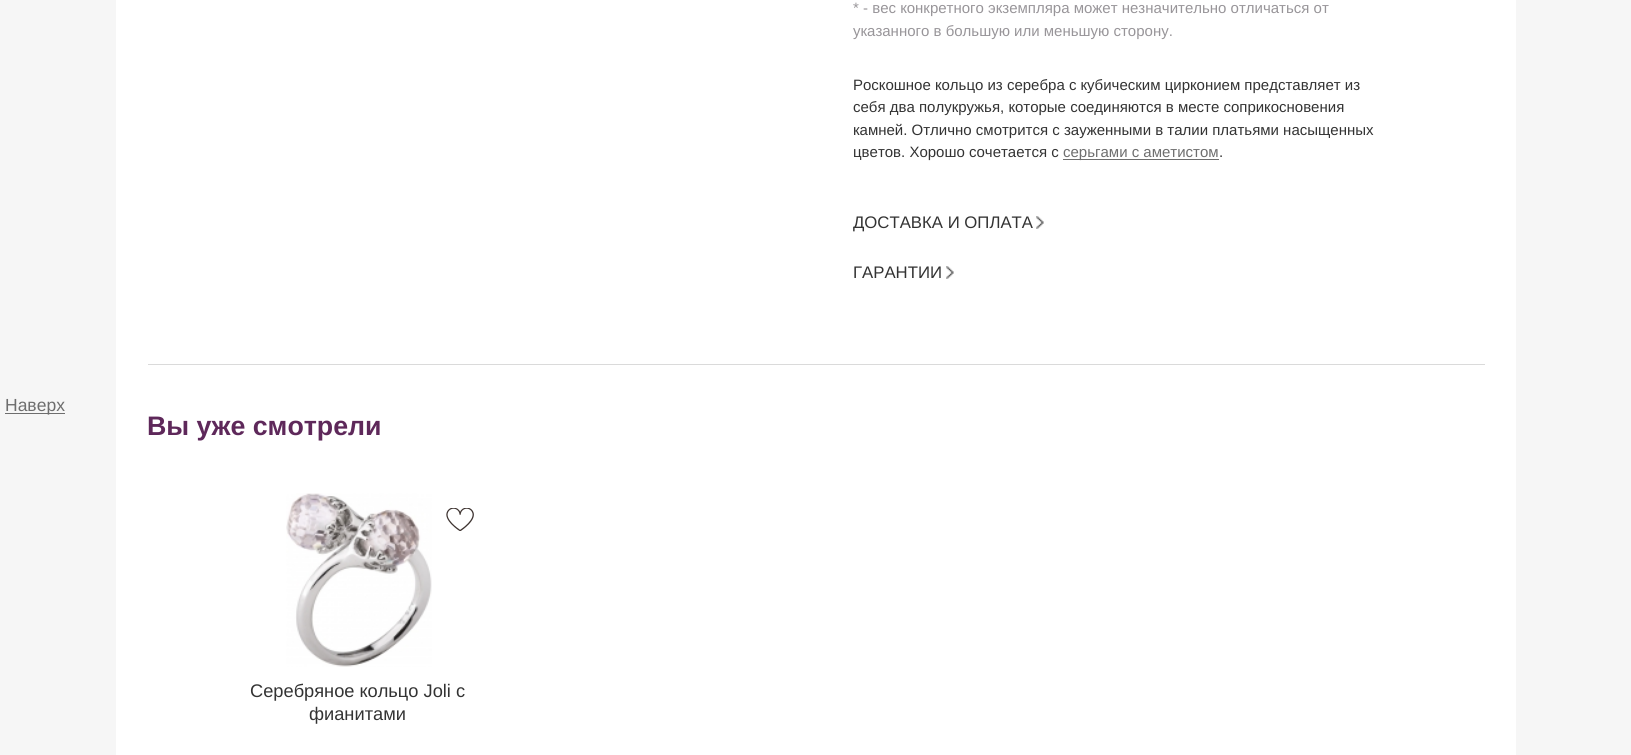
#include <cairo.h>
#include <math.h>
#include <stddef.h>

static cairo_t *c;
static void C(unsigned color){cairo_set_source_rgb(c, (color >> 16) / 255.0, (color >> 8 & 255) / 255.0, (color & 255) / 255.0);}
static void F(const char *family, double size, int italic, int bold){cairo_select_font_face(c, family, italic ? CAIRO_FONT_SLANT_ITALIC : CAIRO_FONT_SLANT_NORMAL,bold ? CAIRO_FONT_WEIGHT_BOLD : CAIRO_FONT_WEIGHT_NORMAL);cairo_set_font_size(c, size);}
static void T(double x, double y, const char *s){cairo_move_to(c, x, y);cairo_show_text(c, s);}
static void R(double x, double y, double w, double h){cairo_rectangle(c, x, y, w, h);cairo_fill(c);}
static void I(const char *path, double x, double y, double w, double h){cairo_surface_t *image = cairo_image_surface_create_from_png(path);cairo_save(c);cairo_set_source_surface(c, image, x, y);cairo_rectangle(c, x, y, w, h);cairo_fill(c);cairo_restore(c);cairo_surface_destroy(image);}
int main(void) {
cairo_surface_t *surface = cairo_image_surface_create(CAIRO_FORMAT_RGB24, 1631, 755);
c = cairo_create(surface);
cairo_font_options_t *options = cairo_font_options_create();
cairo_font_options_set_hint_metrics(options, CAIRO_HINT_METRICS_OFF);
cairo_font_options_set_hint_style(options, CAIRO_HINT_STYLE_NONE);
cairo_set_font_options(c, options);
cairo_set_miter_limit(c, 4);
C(0xf6f6f6);
cairo_paint(c);
C(0xffffff);
R(116,0,1400,755);
C(0x6e6e6e);
R(5,413,60,1);
F("Liberation Sans",17.5,0,0);
T(5,411,"Наверх");
F("Liberation Sans",15,0,0);
C(0x989599);
T(853,13,"* - вес конкретного экземпляра может незначительно отличаться от");
T(853,36,"указанного в большую или меньшую сторону.");
C(0x333333);
T(853,90,"Роскошное кольцо из серебра с кубическим цирконием представляет из");
T(853,112,"себя два полукружья, которые соединяются в месте соприкосновения");
T(853,135,"камней. Отлично смотрится с зауженными в талии платьями насыщенных");
T(853,157,"цветов. Хорошо сочетается с");
C(0x6e6e6e);
R(1063,159,156,1);
T(1063,157,"серьгами с аметистом");
C(0x333333);
T(1219,157,".");
F("Liberation Sans",16.75,0,0);
T(853,228,"ДОСТАВКА И ОПЛАТА");
I("1.png",1036,216,8,13);
T(853,278,"ГАРАНТИИ");
I("1.png",946,266,8,13);
C(0xdadada);
R(148,364,1337,1);
F("Liberation Sans",26.75,0,1);
C(0x5e285a);
T(147,435,"Вы уже смотрели");
I("2.png",286,493,146,174);
I("3.png",446,508,28,23);
F("Liberation Sans",18.25,0,0);
C(0x333333);
T(250,697,"Серебряное кольцо Joli с");
T(309,720,"фианитами");
cairo_surface_write_to_png(surface, "o.png");
cairo_font_options_destroy(options);
cairo_destroy(c);
cairo_surface_destroy(surface);
return 0;
}
